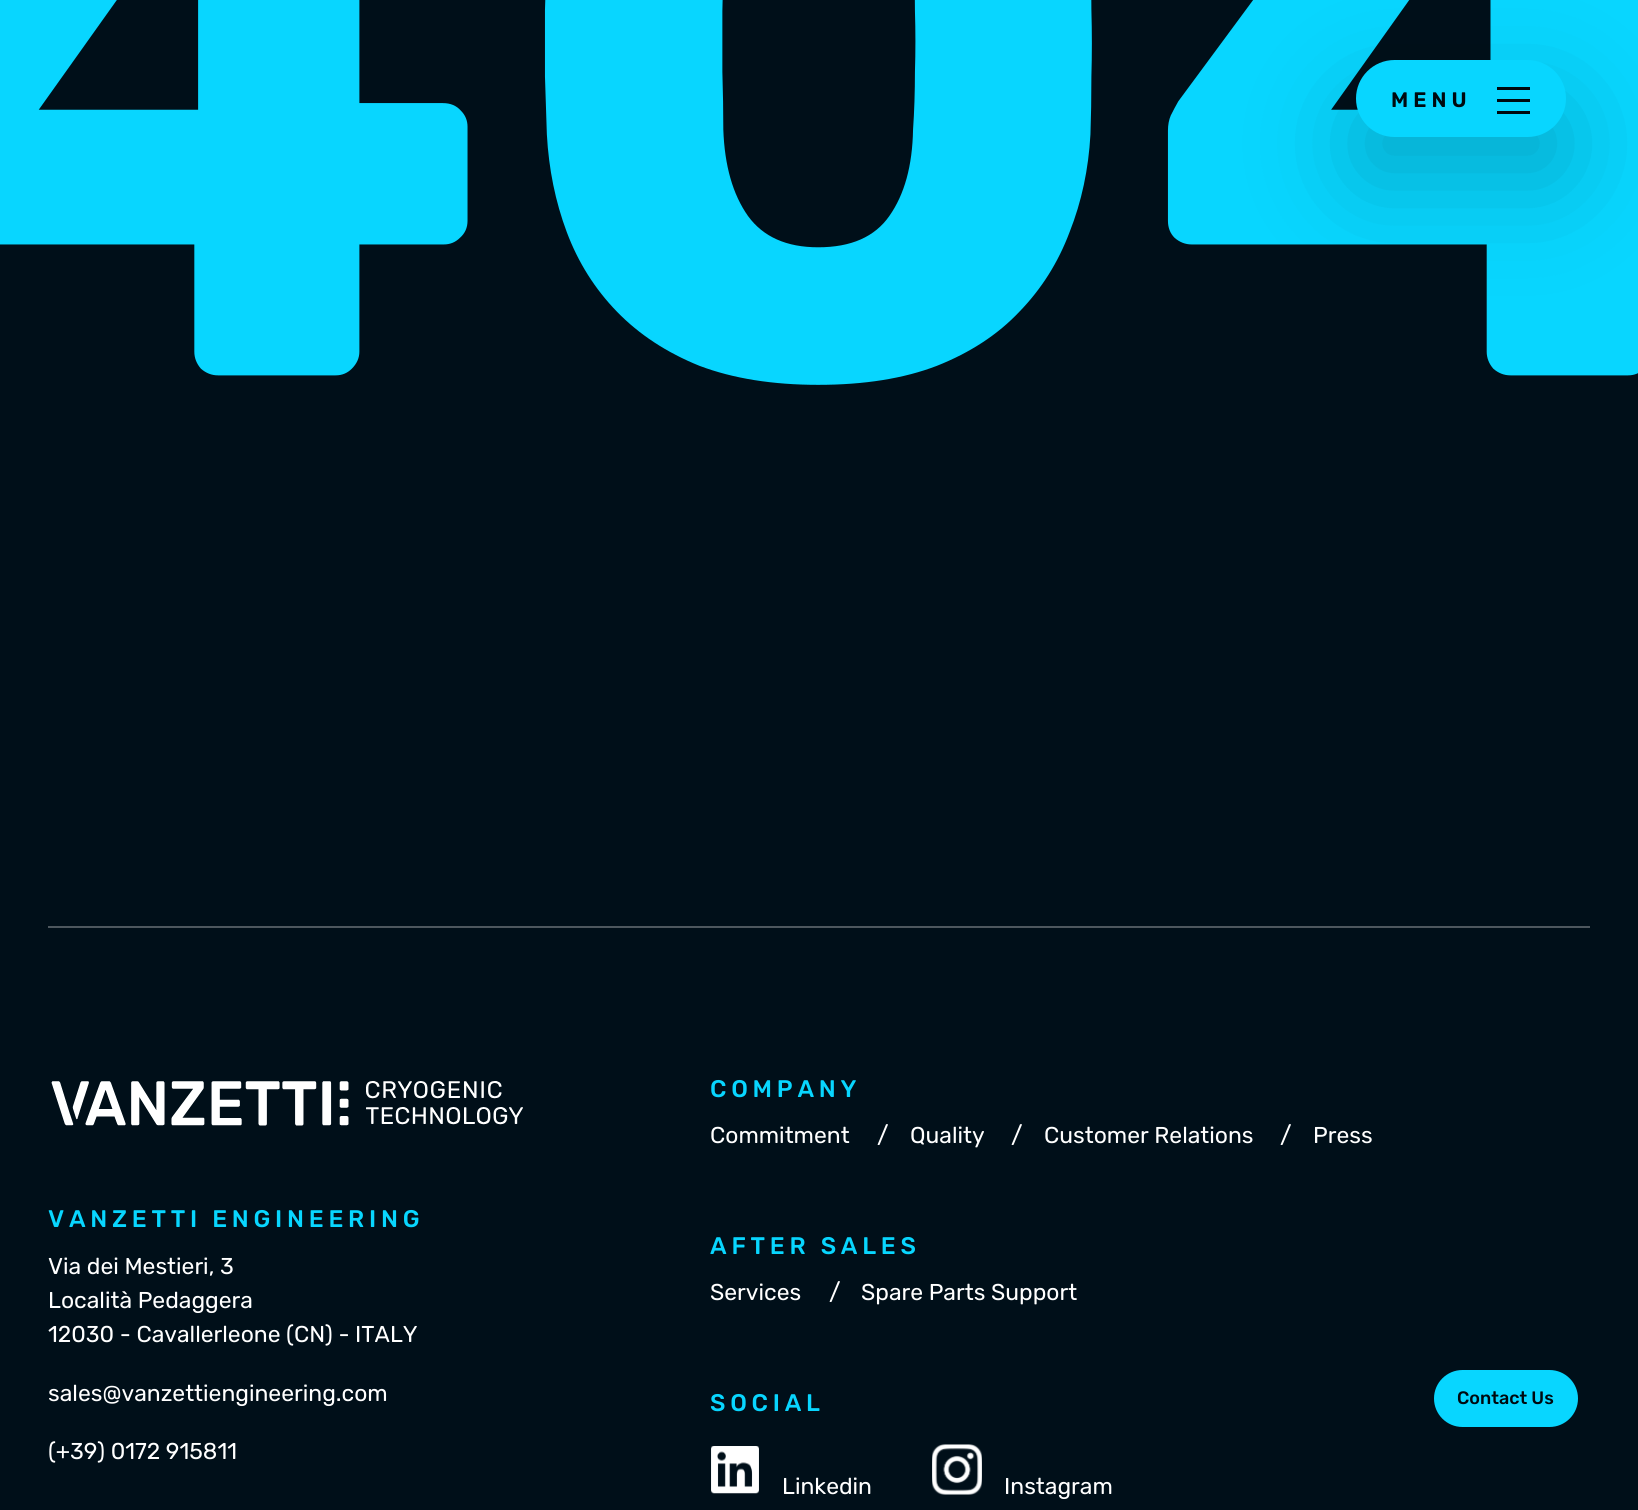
#include <cairo.h>
#include <math.h>
#include <stddef.h>

static cairo_t *c;
static void C(unsigned color){cairo_set_source_rgb(c, (color >> 16) / 255.0, (color >> 8 & 255) / 255.0, (color & 255) / 255.0);}
static void F(const char *family, double size, int italic, int bold){cairo_select_font_face(c, family, italic ? CAIRO_FONT_SLANT_ITALIC : CAIRO_FONT_SLANT_NORMAL,bold ? CAIRO_FONT_WEIGHT_BOLD : CAIRO_FONT_WEIGHT_NORMAL);cairo_set_font_size(c, size);}
static void T(double x, double y, const char *s){cairo_move_to(c, x, y);cairo_show_text(c, s);}
static void L(double x, double y, const char *s, double letter, double word){cairo_move_to(c, x, y);while (*s) {char ch[5] = {0};int n = 0;do ch[n++] = *s++; while ((*s & 0xC0) == 0x80);cairo_show_text(c, ch);cairo_rel_move_to(c, letter + word * (*ch == ' '), 0);}}
static void R(double x, double y, double w, double h){cairo_rectangle(c, x, y, w, h);cairo_fill(c);}
static void Q(double x, double y, double w, double h, double r){cairo_new_sub_path(c);cairo_arc(c, x + w - r, y + h - r, r, 0, M_PI / 2);cairo_arc(c, x + r, y + h - r, r, M_PI / 2, M_PI);cairo_arc(c, x + r, y + r, r, M_PI, 1.5 * M_PI);cairo_arc(c, x + w - r, y + r, r, 1.5 * M_PI, 2 * M_PI);cairo_close_path(c);}
static void S(double x, double y, double w, double h, double r, double blur, double alpha){cairo_push_group_with_content(c, CAIRO_CONTENT_ALPHA);cairo_set_operator(c, CAIRO_OPERATOR_SOURCE);for (int i = 15; i >= -15 && fmin(w, h) + blur * i / 3 > 0; i -= 2) {double e = blur * i / 6;cairo_set_source_rgba(c, 0, 0, 0, alpha * erfc((i - 1) / 8.5) / 2);Q(x - e, y - e, w + 2 * e, h + 2 * e, fmax(0, fmin(r + e + blur * .6, fmin(w, h) / 2 + e)));cairo_fill(c);}cairo_pattern_t *soft = cairo_pop_group(c);cairo_mask(c, soft);cairo_pattern_destroy(soft);}
static void I(const char *path, double x, double y, double w, double h){cairo_surface_t *image = cairo_image_surface_create_from_png(path);cairo_save(c);cairo_set_source_surface(c, image, x, y);cairo_rectangle(c, x, y, w, h);cairo_fill(c);cairo_restore(c);cairo_surface_destroy(image);}
int main(void) {
cairo_surface_t *surface = cairo_image_surface_create(CAIRO_FORMAT_RGB24, 1638, 1510);
c = cairo_create(surface);
cairo_font_options_t *options = cairo_font_options_create();
cairo_font_options_set_hint_metrics(options, CAIRO_HINT_METRICS_OFF);
cairo_font_options_set_hint_style(options, CAIRO_HINT_STYLE_NONE);
cairo_set_font_options(c, options);
cairo_set_miter_limit(c, 4);
cairo_pattern_t *gradient;
C(0xffffff);
cairo_paint(c);
gradient = cairo_pattern_create_linear(819,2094,819,-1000);
cairo_pattern_add_color_stop_rgba(gradient,.85,0,0.059,0.098,1);
cairo_pattern_add_color_stop_rgba(gradient,1,0.035,0.306,0.482,1);
cairo_set_source(c,gradient);
cairo_pattern_destroy(gradient);
R(0,0,1638,1510);
C(0x4d575e);
R(48,926,1542,2);
I("1.png",51,1081,472,45);
F("Rubik Medium",24,0,0);
C(0x08d6ff);
L(48,1227,"VANZETTI ENGINEERING",4.75,0);
F("Rubik",22.9,0,0);
C(0xffffff);
T(48,1274,"Via dei Mestieri, 3");
T(48,1308,"Località Pedaggera");
T(48,1342,"12030 - Cavallerleone (CN) - ITALY");
T(48,1401,"sales@vanzettiengineering.com");
T(48,1459,"(+39) 0172 915811");
F("Rubik Medium",24,0,0);
C(0x08d6ff);
L(710,1097,"COMPANY",4.75,0);
F("Rubik",22.9,0,0);
C(0xffffff);
T(710,1143,"Commitment");
F("Rubik",24,0,0);
T(877,1143,"/");
F("Rubik",22.9,0,0);
T(910,1143,"Quality");
F("Rubik",24,0,0);
T(1011,1143,"/");
F("Rubik",22.9,0,0);
T(1044,1143,"Customer Relations");
F("Rubik",24,0,0);
T(1280,1143,"/");
F("Rubik",22.9,0,0);
T(1313,1143,"Press");
F("Rubik Medium",24,0,0);
C(0x08d6ff);
L(710,1254,"AFTER SALES",4.75,0);
F("Rubik",22.9,0,0);
C(0xffffff);
T(710,1300,"Services");
F("Rubik",24,0,0);
T(829,1300,"/");
F("Rubik",22.9,0,0);
T(861,1300,"Spare Parts Support");
F("Rubik Medium",24,0,0);
C(0x08d6ff);
L(710,1411,"SOCIAL",4.75,0);
I("2.png",711,1446,48,48);
F("Rubik",22.9,0,0);
C(0xffffff);
T(782,1494,"Linkedin");
I("3.png",932,1444,50,51);
T(1004,1494,"Instagram");
I("4.png",0,0,1638,385);
C(0x000000);
S(1356,105,210,77,38.5,52.5,.2);
C(0x08d6ff);
Q(1356,60,210,77,38.5);
cairo_fill(c);
F("Rubik SemiBold",21,0,0);
C(0x00090f);
L(1391,107,"MENU",5,0);
R(1497,87,33,3);
R(1497,99,33,3);
R(1497,111,33,3);
C(0x08d6ff);
Q(1434,1370,144,57,28.5);
cairo_fill(c);
F("Rubik Medium",18,0,0);
C(0x00090f);
T(1457,1404,"Contact Us");
cairo_surface_write_to_png(surface, "o.png");
cairo_font_options_destroy(options);
cairo_destroy(c);
cairo_surface_destroy(surface);
return 0;
}
